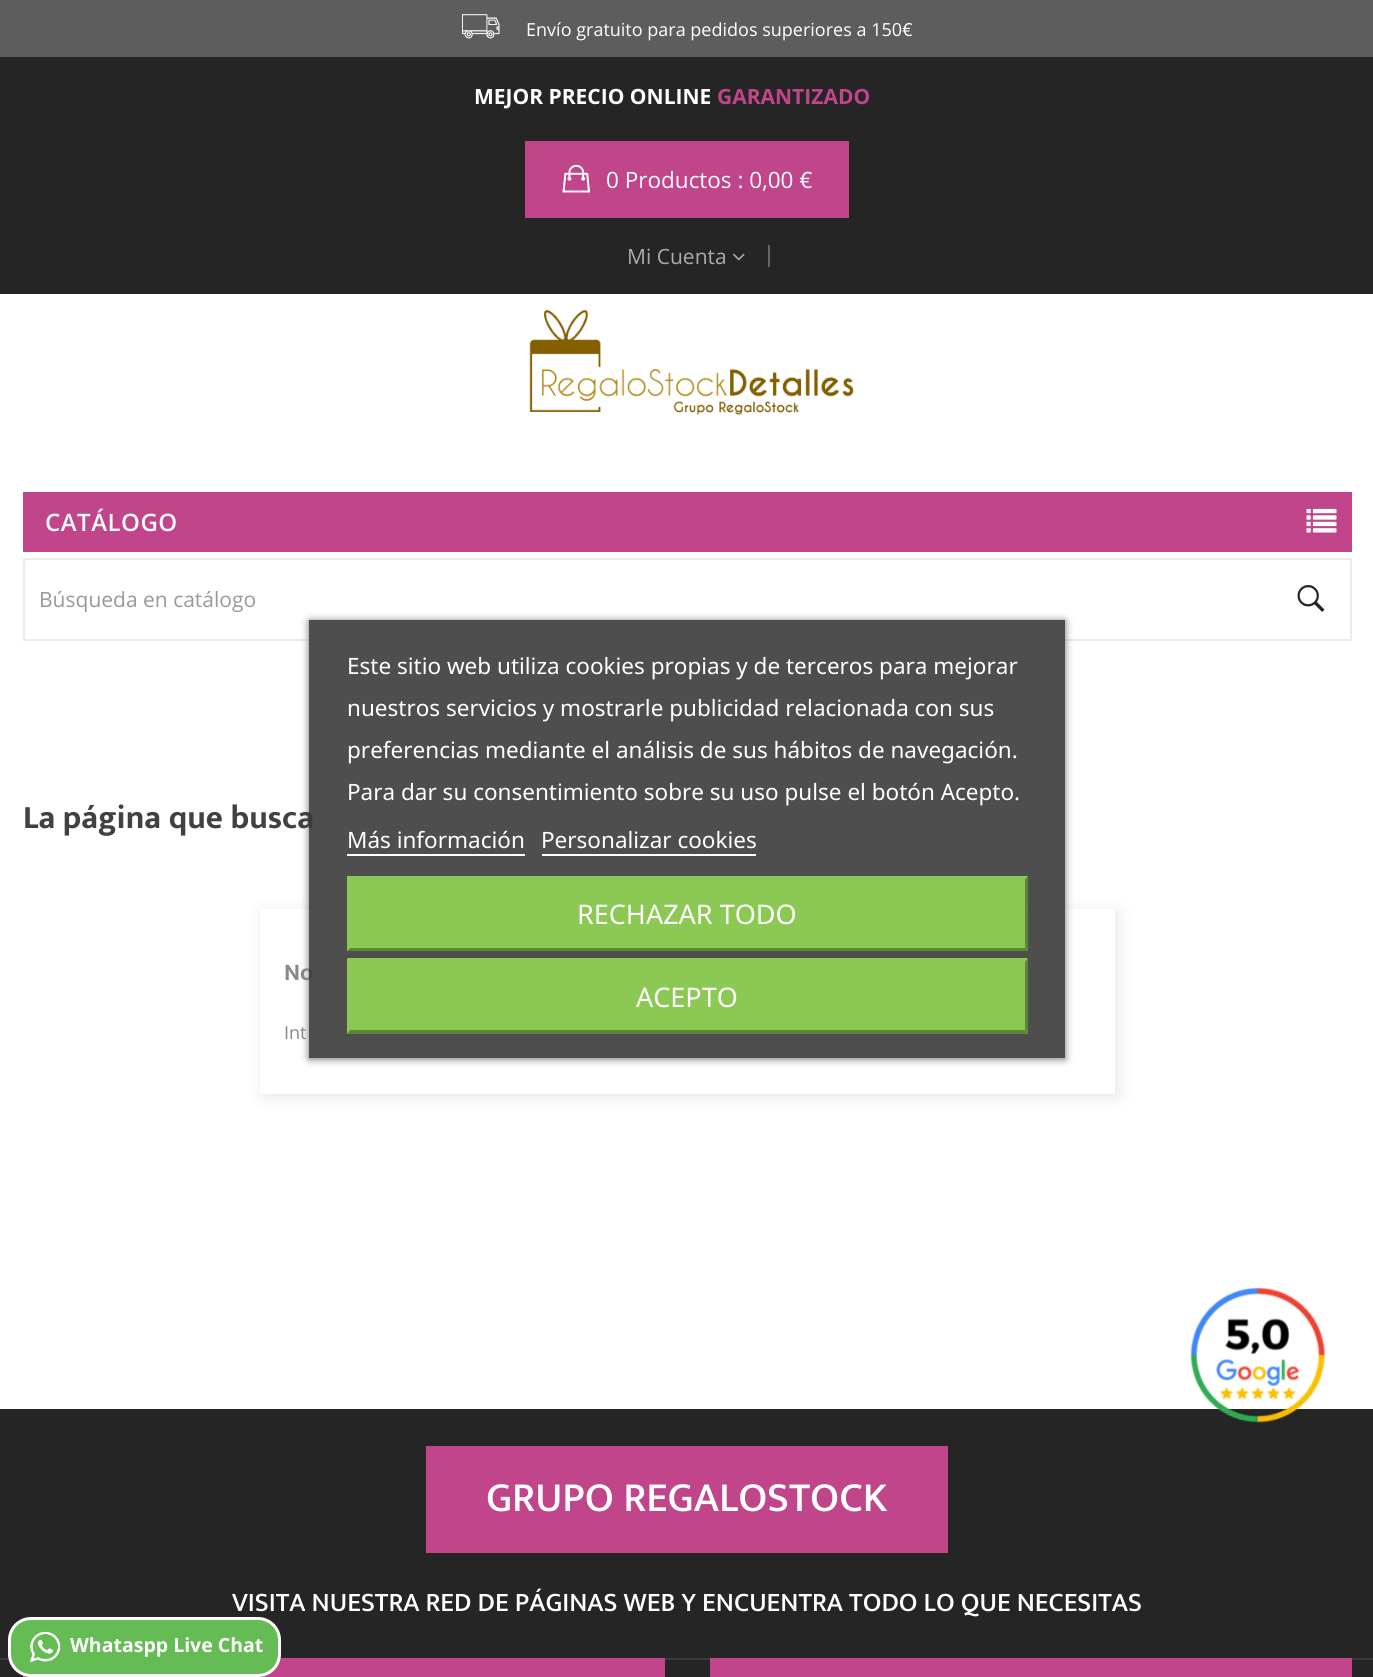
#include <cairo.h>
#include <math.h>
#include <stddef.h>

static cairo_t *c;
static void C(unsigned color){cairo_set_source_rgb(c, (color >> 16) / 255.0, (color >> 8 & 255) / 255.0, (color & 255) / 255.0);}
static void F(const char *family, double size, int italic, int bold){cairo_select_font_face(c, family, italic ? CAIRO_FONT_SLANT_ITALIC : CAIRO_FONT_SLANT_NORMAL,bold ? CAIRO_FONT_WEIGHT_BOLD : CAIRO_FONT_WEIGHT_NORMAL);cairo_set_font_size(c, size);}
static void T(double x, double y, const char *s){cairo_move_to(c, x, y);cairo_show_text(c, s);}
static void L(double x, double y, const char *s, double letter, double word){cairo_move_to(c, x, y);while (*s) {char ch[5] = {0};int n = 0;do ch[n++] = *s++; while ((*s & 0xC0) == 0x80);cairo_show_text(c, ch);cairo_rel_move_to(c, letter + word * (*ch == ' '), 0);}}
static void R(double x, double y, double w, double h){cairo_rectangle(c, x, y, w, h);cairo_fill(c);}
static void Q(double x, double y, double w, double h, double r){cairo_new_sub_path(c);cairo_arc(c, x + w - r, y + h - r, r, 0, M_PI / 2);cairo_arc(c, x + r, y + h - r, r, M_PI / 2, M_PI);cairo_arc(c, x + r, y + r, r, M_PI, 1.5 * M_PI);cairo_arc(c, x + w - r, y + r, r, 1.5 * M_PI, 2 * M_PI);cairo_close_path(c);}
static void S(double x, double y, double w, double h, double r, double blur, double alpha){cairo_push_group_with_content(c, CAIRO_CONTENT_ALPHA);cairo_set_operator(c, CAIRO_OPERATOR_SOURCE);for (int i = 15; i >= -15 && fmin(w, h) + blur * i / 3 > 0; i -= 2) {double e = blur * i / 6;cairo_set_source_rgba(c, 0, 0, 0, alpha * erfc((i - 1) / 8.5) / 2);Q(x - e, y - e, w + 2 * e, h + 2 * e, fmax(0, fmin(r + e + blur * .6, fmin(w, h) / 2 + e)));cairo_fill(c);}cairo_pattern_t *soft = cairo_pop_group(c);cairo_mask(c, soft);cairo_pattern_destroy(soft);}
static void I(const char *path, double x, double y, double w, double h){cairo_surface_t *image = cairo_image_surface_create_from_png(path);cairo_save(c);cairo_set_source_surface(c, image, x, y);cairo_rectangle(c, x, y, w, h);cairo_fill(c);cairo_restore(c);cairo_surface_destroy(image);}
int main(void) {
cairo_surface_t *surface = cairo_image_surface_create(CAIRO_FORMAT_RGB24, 1373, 1677);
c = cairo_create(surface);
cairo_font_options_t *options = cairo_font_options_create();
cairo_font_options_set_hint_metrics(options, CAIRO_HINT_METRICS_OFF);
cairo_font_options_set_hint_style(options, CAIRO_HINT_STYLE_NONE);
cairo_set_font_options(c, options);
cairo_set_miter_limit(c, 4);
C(0xffffff);
cairo_paint(c);
C(0x5d5d5d);
R(0,0,1373,57);
I("1.png",462,14,38,25);
F("Open Sans",18,0,0);
C(0xffffff);
T(526,36,"Envío gratuito para pedidos superiores a 150€");
C(0x252525);
R(0,57,1373,237);
F("Open Sans",21,0,1);
C(0xffffff);
T(474,104,"MEJOR PRECIO ONLINE");
C(0xc0458b);
T(717,104,"GARANTIZADO");
R(525,141,324,77);
I("2.png",562,164,28,29);
F("Open Sans",22.5,0,0);
C(0xffffff);
T(606,188,"0 Productos : 0,00 €");
C(0x666666);
R(768,245,2,22);
F("Open Sans",21,0,0);
C(0xaaaaaa);
T(627,264,"Mi Cuenta");
I("3.png",733,253,12,8);
I("4.png",529,310,325,105);
C(0xc0458b);
R(23,492,1329,60);
F("Open Sans SemiBold",24,0,0);
C(0xffffff);
L(45,531,"CATÁLOGO",.5,0);
I("5.png",1306,508,31,25);
cairo_rectangle(c,24,559,1327,81);
C(0xebebeb);
cairo_stroke(c);
F("Open Sans",21,0,0);
C(0x999999);
T(39,607,"Búsqueda en catálogo");
I("6.png",1297,585,28,27);
C(0x252525);
R(0,1409,1373,268);
C(0x000000);
S(263,912,855,185,0,8,.1);
C(0xffffff);
R(260,909,855,185);
cairo_save(c);
cairo_set_fill_rule(c,CAIRO_FILL_RULE_EVEN_ODD);
cairo_new_path(c);
cairo_move_to(c,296,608);
cairo_line_to(c,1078,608);
cairo_line_to(c,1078,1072);
cairo_line_to(c,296,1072);
cairo_close_path(c);
cairo_move_to(c,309,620);
cairo_line_to(c,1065,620);
cairo_line_to(c,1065,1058);
cairo_line_to(c,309,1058);
cairo_close_path(c);
cairo_clip(c);
C(0x707070);
S(309,621,756,438,0,4,1);
cairo_restore(c);
F("Ek Mukta",33,0,1);
C(0x414141);
T(23,828,"La página que busca");
F("Ek Mukta",24,0,1);
C(0x878787);
T(284,980,"No");
cairo_set_source_rgba(c,0.231,0.231,0.231,0.9);
R(309,620,756,438);
F("Noto Sans",22.5,0,0);
C(0xffffff);
T(347,674,"Este sitio web utiliza cookies propias y de terceros para mejorar");
T(347,716,"nuestros servicios y mostrarle publicidad relacionada con sus");
T(347,758,"preferencias mediante el análisis de sus hábitos de navegación.");
T(347,800,"Para dar su consentimiento sobre su uso pulse el botón Acepto.");
T(347,848,"Más información");
R(347,854,178,2);
T(541,848,"Personalizar cookies");
R(542,854,214,2);
C(0x8bc954);
R(347,876,681,75);
C(0x5d8638);
cairo_new_path(c);
cairo_move_to(c,1028,876);
cairo_line_to(c,1028,951);
cairo_line_to(c,1025,948);
cairo_line_to(c,1025,879);
cairo_close_path(c);
cairo_fill(c);
cairo_new_path(c);
cairo_move_to(c,1028,951);
cairo_line_to(c,347,951);
cairo_line_to(c,350,948);
cairo_line_to(c,1025,948);
cairo_close_path(c);
cairo_fill(c);
C(0x8bc954);
cairo_new_path(c);
cairo_move_to(c,347,951);
cairo_line_to(c,347,876);
cairo_line_to(c,350,879);
cairo_line_to(c,350,948);
cairo_close_path(c);
cairo_fill(c);
F("Noto Sans",27,0,0);
C(0xffffff);
T(577,924,"RECHAZAR TODO");
C(0x8bc954);
R(347,959,681,75);
cairo_new_path(c);
cairo_move_to(c,347,958);
cairo_line_to(c,1028,958);
cairo_line_to(c,1025,962);
cairo_line_to(c,350,962);
cairo_close_path(c);
cairo_fill(c);
C(0x5d8638);
cairo_new_path(c);
cairo_move_to(c,1028,958);
cairo_line_to(c,1028,1034);
cairo_line_to(c,1025,1030);
cairo_line_to(c,1025,962);
cairo_close_path(c);
cairo_fill(c);
cairo_new_path(c);
cairo_move_to(c,1028,1034);
cairo_line_to(c,347,1034);
cairo_line_to(c,350,1030);
cairo_line_to(c,1025,1030);
cairo_close_path(c);
cairo_fill(c);
C(0x8bc954);
cairo_new_path(c);
cairo_move_to(c,347,1034);
cairo_line_to(c,347,958);
cairo_line_to(c,350,962);
cairo_line_to(c,350,1030);
cairo_close_path(c);
cairo_fill(c);
C(0xffffff);
T(636,1007,"ACEPTO");
C(0x3b3b3b);
R(0,1658,1373,2);
C(0xc0458b);
R(23,1658,642,19);
C(0x65bc54);
Q(9.5,1618.5,270,57,21.5);
cairo_fill_preserve(c);
C(0xffffff);
cairo_set_line_width(c,3);
cairo_stroke(c);
I("7.png",29,1631,32,32);
F("Open Sans",19.5,0,1);
T(70,1652,"Whataspp Live Chat");
I("8.png",1190,1287,136,136);
C(0xc0458b);
R(426,1446,522,107);
F("Ek Mukta Medium",42,0,0);
C(0xffffff);
T(486,1511,"GRUPO REGALOSTOCK");
F("Ek Mukta Medium",27,0,0);
T(232,1611,"VISITA NUESTRA RED DE PÁGINAS WEB Y ENCUENTRA TODO LO QUE NECESITAS");
C(0xc0458b);
R(710,1658,642,19);
F("Open Sans",18,0,0);
C(0x878787);
T(284,1039,"Int");
cairo_surface_write_to_png(surface, "o.png");
cairo_font_options_destroy(options);
cairo_destroy(c);
cairo_surface_destroy(surface);
return 0;
}
